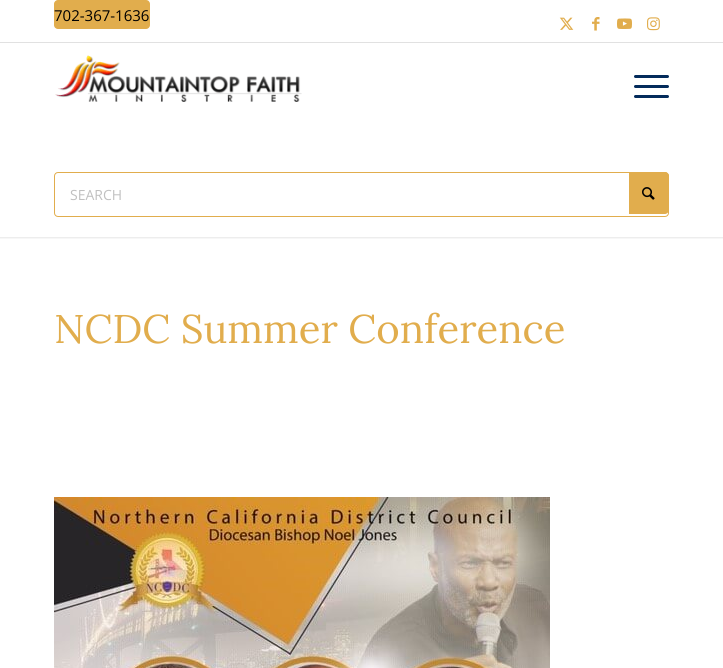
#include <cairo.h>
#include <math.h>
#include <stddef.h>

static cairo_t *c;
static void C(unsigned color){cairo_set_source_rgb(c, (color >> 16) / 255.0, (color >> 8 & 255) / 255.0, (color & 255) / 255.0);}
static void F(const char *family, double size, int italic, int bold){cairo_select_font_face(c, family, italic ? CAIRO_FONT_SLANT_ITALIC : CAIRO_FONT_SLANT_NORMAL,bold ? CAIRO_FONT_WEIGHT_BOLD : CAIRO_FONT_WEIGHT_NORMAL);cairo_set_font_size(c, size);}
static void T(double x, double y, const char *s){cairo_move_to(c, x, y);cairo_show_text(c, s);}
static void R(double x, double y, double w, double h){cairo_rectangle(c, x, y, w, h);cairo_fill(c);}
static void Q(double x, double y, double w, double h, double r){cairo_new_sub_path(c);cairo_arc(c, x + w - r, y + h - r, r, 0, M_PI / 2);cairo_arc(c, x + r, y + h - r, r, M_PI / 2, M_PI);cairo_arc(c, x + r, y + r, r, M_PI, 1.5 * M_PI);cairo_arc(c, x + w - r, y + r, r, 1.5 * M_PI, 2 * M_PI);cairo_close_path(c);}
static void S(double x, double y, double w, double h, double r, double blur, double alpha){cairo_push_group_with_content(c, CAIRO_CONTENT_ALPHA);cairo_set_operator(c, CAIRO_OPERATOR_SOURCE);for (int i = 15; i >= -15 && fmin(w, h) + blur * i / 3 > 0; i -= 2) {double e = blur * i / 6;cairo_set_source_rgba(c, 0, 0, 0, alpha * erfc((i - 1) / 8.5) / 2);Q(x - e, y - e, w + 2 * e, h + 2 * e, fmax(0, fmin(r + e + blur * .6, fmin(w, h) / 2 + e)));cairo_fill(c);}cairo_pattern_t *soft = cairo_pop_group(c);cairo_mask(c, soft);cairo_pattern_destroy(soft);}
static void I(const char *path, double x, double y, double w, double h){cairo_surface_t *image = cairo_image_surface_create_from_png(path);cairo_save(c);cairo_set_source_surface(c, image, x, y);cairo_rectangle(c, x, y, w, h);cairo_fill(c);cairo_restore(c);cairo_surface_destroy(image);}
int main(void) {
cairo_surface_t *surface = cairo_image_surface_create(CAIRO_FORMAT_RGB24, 723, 668);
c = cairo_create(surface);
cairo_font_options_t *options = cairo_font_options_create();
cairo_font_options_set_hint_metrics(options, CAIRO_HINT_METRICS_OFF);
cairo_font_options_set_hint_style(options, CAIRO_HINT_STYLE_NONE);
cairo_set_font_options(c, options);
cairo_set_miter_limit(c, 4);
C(0xffffff);
cairo_paint(c);
cairo_save(c);
cairo_rectangle(c,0,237,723,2);
cairo_clip(c);
C(0x000000);
S(-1,-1,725,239,0,1,.1);
cairo_restore(c);
C(0xe1e1e1);
R(0,42,723,1);
C(0xe1ad4d);
Q(54,0,96,29,4);
cairo_fill(c);
F("Open Sans",15,0,0);
C(0x000000);
T(54,21,"702-367-1636");
I("1.png",559,17,15,13);
I("2.png",592,17,8,14);
I("3.png",617,18,15,11);
I("4.png",647,17,13,14);
I("5.png",55,55,247,47);
C(0x032b5b);
Q(634,85,35,3,1.5);
cairo_fill(c);
Q(634,75,35,3,1.5);
cairo_fill(c);
Q(634,95,35,3,1.5);
cairo_fill(c);
Q(54.5,172.5,614,44,3.5);
C(0xe1ad4d);
cairo_set_line_width(c,1);
cairo_stroke(c);
F("Open Sans",14,0,0);
C(0xc0c0c0);
T(70,200,"SEARCH");
C(0xe1ad4d);
cairo_new_path(c);
cairo_move_to(c,629,172);
cairo_line_to(c,665,172);
cairo_curve_to(c,667,172,669,174,669,176);
cairo_line_to(c,669,210);
cairo_curve_to(c,669,212,667,214,665,214);
cairo_line_to(c,629,214);
cairo_close_path(c);
cairo_fill(c);
I("6.png",642,187,13,13);
F("Lora",40,0,0);
T(54,343,"NCDC Summer Conference");
I("7.png",54,497,496,171);
cairo_surface_write_to_png(surface, "o.png");
cairo_font_options_destroy(options);
cairo_destroy(c);
cairo_surface_destroy(surface);
return 0;
}
